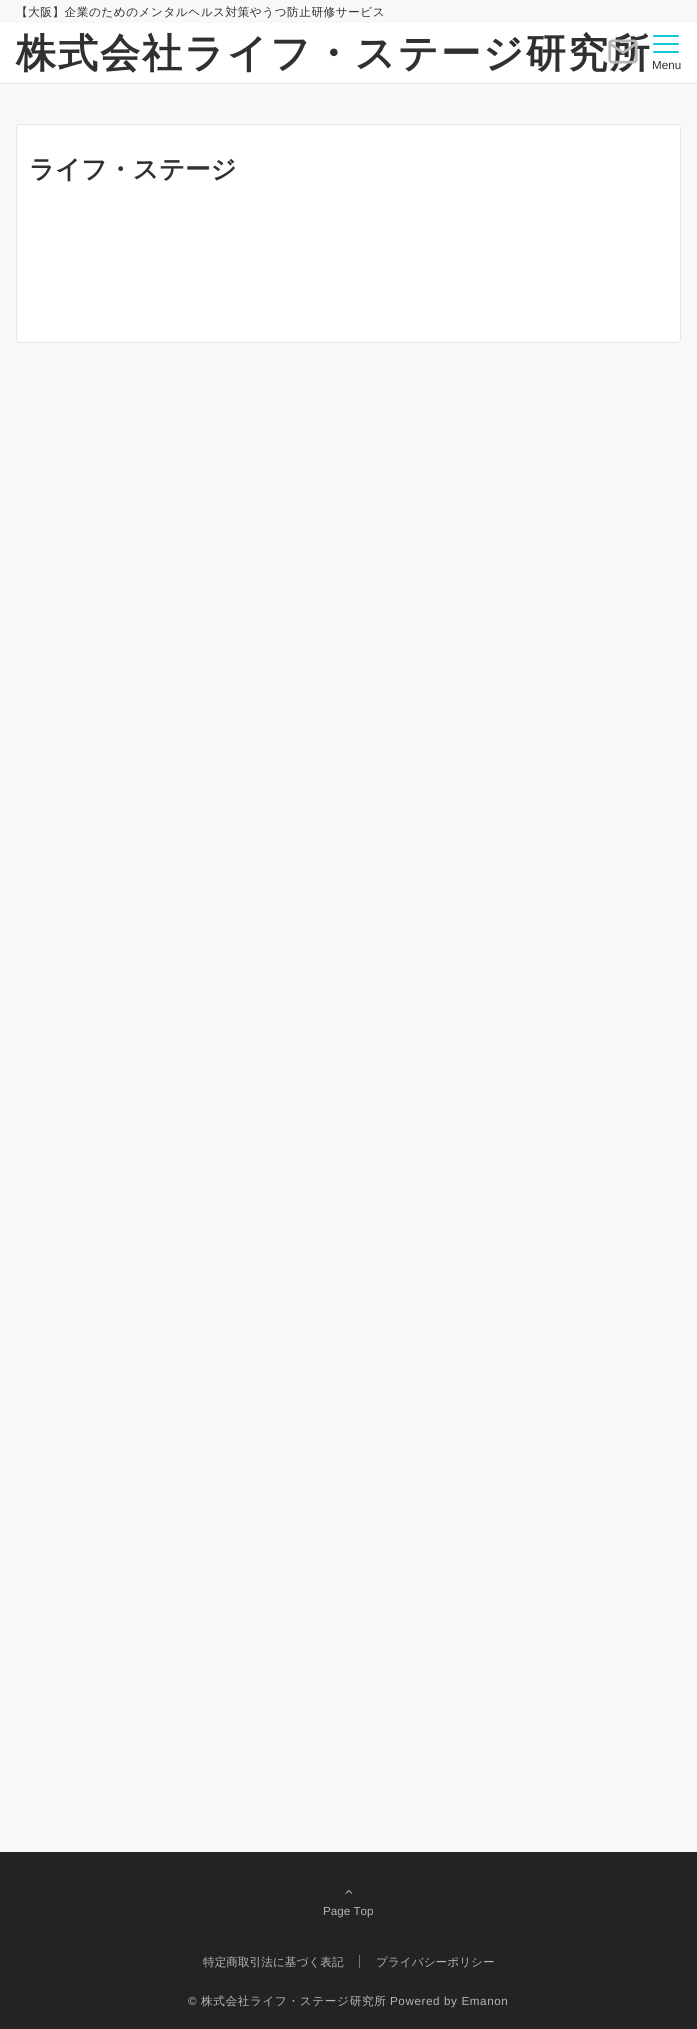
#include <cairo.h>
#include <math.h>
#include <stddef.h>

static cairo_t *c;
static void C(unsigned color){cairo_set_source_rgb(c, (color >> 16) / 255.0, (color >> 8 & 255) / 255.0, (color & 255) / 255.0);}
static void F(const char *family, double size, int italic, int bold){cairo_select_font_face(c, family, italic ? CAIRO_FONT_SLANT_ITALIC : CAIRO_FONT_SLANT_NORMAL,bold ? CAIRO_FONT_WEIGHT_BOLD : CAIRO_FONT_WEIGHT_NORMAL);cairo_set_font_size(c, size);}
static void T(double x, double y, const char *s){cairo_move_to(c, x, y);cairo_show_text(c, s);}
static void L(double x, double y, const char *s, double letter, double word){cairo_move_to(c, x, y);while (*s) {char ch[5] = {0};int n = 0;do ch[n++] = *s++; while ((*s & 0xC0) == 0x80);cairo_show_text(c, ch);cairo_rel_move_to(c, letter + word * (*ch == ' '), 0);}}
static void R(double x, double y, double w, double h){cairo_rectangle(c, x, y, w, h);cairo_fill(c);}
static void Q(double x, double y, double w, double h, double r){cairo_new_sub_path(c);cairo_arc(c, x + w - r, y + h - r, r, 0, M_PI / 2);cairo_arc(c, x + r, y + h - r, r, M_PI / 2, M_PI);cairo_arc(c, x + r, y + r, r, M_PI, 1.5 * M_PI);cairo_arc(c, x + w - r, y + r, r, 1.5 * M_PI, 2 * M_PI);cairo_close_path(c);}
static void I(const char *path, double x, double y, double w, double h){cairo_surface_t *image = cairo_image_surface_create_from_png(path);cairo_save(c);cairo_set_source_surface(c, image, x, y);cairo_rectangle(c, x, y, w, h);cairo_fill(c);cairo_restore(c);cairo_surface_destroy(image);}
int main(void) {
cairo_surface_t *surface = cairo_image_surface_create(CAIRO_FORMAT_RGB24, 697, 2029);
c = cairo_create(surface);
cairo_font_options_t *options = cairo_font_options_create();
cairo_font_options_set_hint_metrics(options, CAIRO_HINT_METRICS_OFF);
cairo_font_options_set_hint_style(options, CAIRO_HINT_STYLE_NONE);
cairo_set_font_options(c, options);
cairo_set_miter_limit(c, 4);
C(0xf8f8f8);
cairo_paint(c);
F("WenQuanYi Zen Hei Medium",11.65,0,0);
C(0x303030);
L(16,16,"【大阪】企業のためのメンタルヘルス対策やうつ防止研修サービス",.5,0);
C(0xffffff);
R(0,23,697,60);
C(0xe6e6e6);
R(0,83,697,1);
F("WenQuanYi Zen Hei",40,0,1);
C(0x303030);
L(16,67,"株式会社ライフ・ステージ研究所",2,0);
I("1.png",608,39,30,25);
C(0x15c9d6);
Q(653,35,26,2,1);
cairo_fill(c);
Q(653,43,26,2,1);
cairo_fill(c);
Q(653,51,26,2,1);
cairo_fill(c);
F("Liberation Sans",11.65,0,0);
C(0x303030);
T(652,69,"Menu");
C(0xffffff);
Q(16.5,124.5,664,218,3.5);
cairo_fill_preserve(c);
C(0xe5e7e8);
cairo_set_line_width(c,1);
cairo_stroke(c);
F("WenQuanYi Zen Hei",25.5,0,1);
C(0x303030);
T(29,178,"ライフ・ステージ");
C(0x232323);
R(0,1852,697,177);
I("2.png",345,1890,8,4);
F("Liberation Sans",11.65,0,0);
C(0xb5b5b5);
T(323,1915,"Page Top");
F("WenQuanYi Zen Hei Medium",11.65,0,0);
T(203,1966,"特定商取引法に基づく表記");
C(0x757575);
R(359,1955,1,13);
C(0xb5b5b5);
T(376,1966,"プライバシーポリシー");
F("Liberation Sans",11.65,0,0);
L(188,2005,"©",.6,0);
F("WenQuanYi Zen Hei Medium",11.65,0,0);
L(201,2005,"株式会社ライフ・ステージ研究所",.6,0);
F("Liberation Sans",11.65,0,0);
L(390,2005,"Powered by Emanon",.6,0);
cairo_surface_write_to_png(surface, "o.png");
cairo_font_options_destroy(options);
cairo_destroy(c);
cairo_surface_destroy(surface);
return 0;
}
